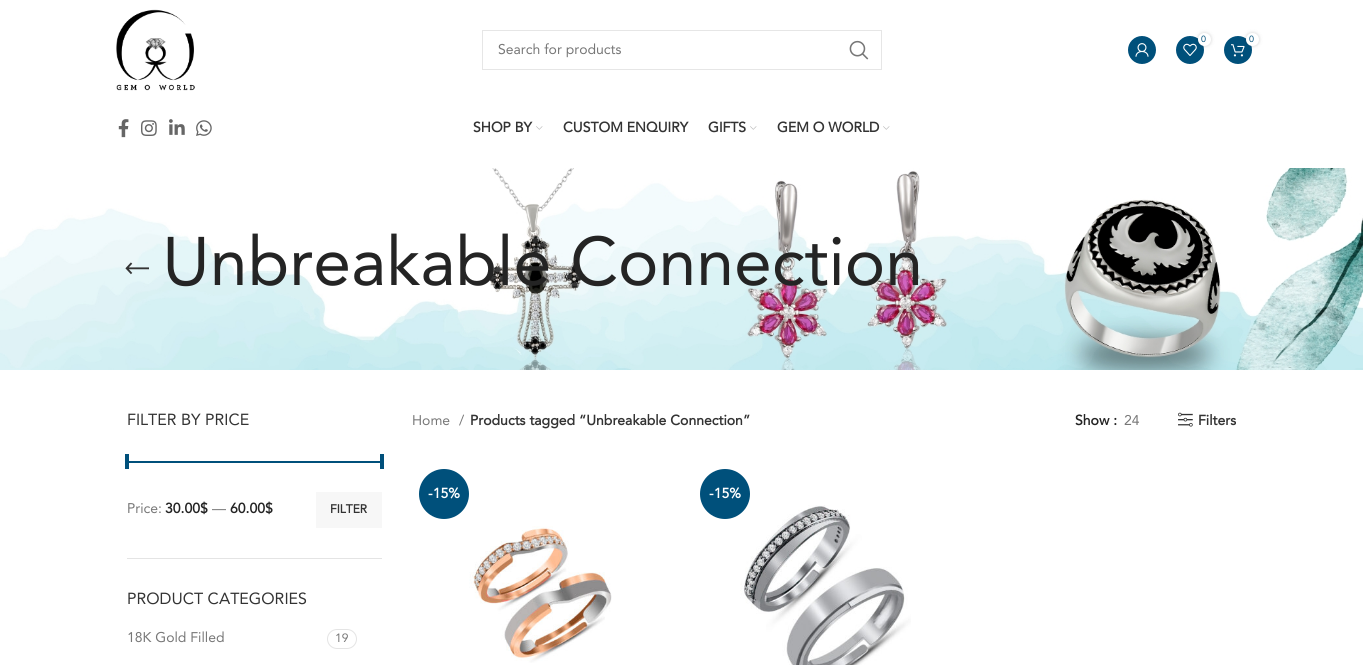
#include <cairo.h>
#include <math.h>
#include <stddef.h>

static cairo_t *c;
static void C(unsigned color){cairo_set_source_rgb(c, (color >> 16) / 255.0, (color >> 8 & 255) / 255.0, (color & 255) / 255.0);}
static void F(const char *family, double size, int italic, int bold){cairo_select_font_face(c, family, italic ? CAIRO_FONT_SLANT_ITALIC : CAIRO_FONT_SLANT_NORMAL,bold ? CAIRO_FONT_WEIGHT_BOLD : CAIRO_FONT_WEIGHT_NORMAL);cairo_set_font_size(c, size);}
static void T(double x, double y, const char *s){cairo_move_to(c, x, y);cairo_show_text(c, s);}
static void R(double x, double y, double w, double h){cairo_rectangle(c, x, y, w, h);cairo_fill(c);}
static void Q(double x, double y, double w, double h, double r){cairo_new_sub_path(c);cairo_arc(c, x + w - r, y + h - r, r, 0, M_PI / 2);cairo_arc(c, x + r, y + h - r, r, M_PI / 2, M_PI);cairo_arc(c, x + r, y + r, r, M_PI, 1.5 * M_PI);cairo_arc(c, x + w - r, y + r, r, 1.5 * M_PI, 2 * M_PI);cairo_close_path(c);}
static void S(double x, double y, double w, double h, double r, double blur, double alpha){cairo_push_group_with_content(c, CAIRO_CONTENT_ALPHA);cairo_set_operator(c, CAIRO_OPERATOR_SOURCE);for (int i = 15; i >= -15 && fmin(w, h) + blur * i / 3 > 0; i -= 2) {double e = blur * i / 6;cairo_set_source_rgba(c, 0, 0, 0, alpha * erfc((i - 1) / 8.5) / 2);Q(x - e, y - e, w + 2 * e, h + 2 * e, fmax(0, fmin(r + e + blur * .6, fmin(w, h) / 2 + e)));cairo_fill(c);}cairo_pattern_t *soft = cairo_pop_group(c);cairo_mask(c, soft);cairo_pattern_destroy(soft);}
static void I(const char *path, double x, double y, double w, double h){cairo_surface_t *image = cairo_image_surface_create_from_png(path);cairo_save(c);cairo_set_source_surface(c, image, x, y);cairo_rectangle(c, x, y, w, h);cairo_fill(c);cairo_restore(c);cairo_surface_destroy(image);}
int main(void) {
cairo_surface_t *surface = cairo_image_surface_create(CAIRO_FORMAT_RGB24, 1363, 665);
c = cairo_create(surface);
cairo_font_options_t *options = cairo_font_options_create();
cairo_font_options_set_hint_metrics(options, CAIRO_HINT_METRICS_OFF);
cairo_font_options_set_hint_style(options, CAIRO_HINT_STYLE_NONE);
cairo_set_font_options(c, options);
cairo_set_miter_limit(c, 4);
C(0xffffff);
cairo_paint(c);
I("1.png",116,9,79,82);
C(0x00507b);
cairo_arc(c,1142,50,14,0,2 * M_PI);
cairo_fill(c);
I("2.png",1135,43,14,14);
cairo_arc(c,1190,50,14,0,2 * M_PI);
cairo_fill(c);
I("3.png",1183,43,14,13);
C(0x000000);
S(1198,33,13,13,6.5,2,.17);
C(0xffffff);
cairo_arc(c,1204.5,39.5,6.5,0,2 * M_PI);
cairo_fill(c);
F("Avenir",9,0,0);
C(0x00507b);
T(1201,42,"0");
cairo_new_path(c);
cairo_arc(c,1238,50,14,0,2 * M_PI);
cairo_fill(c);
I("4.png",1231,44,14,13);
C(0x000000);
S(1246,33,13,13,6.5,2,.17);
C(0xffffff);
cairo_arc(c,1252.5,39.5,6.5,0,2 * M_PI);
cairo_fill(c);
C(0x00507b);
T(1249,42,"0");
cairo_rectangle(c,482.5,30.5,399,39);
C(0xe6e6e6);
cairo_set_line_width(c,1);
cairo_stroke(c);
F("Avenir",14,0,0);
C(0x777777);
T(498,54,"Search for products");
I("5.png",849,40,20,20);
I("6.png",118,119,11,19);
I("7.png",141,120,16,16);
I("8.png",169,119,16,16);
I("9.png",196,120,16,16);
F("Avenir",14,0,1);
C(0x333333);
T(473,132,"SHOP BY");
I("10.png",536,126,7,4);
T(563,132,"CUSTOM ENQUIRY");
T(708,132,"GIFTS");
I("10.png",750,126,7,4);
T(777,132,"GEM O WORLD");
I("10.png",883,126,7,4);
I("11.png",0,168,1363,202);
I("12.png",125,262,24,13);
F("Avenir",68,0,0);
C(0x242424);
T(162,285,"Unbreakable Connection");
C(0xe4e4e4);
R(127,558,255,1);
F("Avenir",16,0,0);
C(0x333333);
T(127,425,"FILTER BY PRICE");
C(0x00507b);
R(127,461,255,2);
R(125,454,4,15);
R(380,454,4,15);
F("Avenir",14,0,0);
C(0x777777);
T(127,513,"Price:");
F("Avenir",14,0,1);
C(0x242424);
T(165,513,"30.00$");
F("Avenir",14,0,0);
C(0x777777);
T(212,513,"—");
F("Avenir",14,0,1);
C(0x242424);
T(230,513,"60.00$");
C(0xf7f7f7);
R(316,492,66,36);
F("Avenir",12,0,1);
C(0x333333);
T(330,513,"FILTER");
F("Avenir",16,0,0);
T(127,604,"PRODUCT CATEGORIES");
F("Avenir",14,0,0);
C(0x777777);
T(127,642,"18K Gold Filled");
Q(327.5,629.5,29,19,9.5);
C(0xe4e4e4);
cairo_stroke(c);
F("Avenir",12,0,0);
C(0x777777);
T(335,642,"19");
F("Avenir",14,0,0);
T(412,425,"Home");
T(459,425,"/");
F("Avenir",14,0,1);
C(0x333333);
T(470,425,"Products tagged “Unbreakable Connection”");
C(0x242424);
T(1075,425,"Show :");
F("Avenir",14,0,0);
C(0x777777);
T(1124,425,"24");
I("13.png",1178,412,15,15);
F("Avenir",14,0,1);
C(0x333333);
T(1198,425,"Filters");
C(0x00507b);
cairo_new_path(c);
cairo_arc(c,444,494,25,0,2 * M_PI);
cairo_fill(c);
C(0xffffff);
T(428,498,"-15%");
I("14.png",469,526,143,137);
I("15.png",740,505,171,160);
C(0x00507b);
cairo_arc(c,725,494,25,0,2 * M_PI);
cairo_fill(c);
C(0xffffff);
T(709,498,"-15%");
cairo_surface_write_to_png(surface, "o.png");
cairo_font_options_destroy(options);
cairo_destroy(c);
cairo_surface_destroy(surface);
return 0;
}
